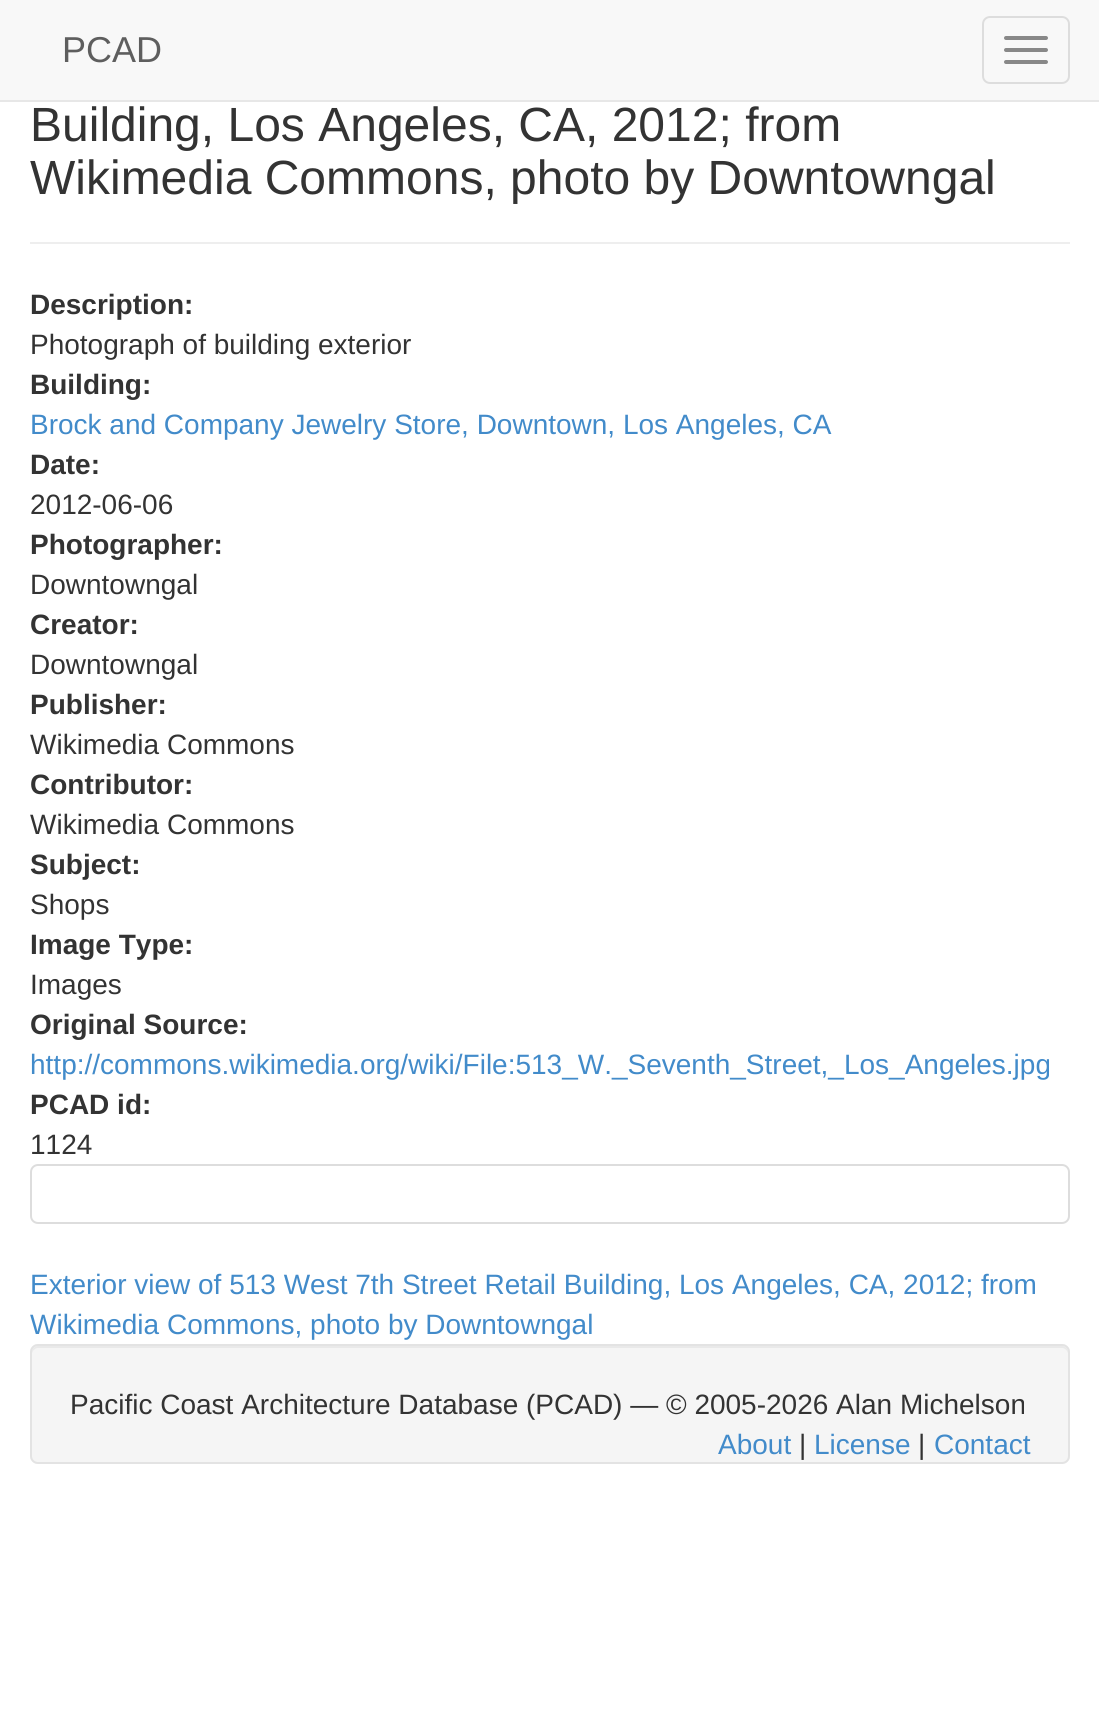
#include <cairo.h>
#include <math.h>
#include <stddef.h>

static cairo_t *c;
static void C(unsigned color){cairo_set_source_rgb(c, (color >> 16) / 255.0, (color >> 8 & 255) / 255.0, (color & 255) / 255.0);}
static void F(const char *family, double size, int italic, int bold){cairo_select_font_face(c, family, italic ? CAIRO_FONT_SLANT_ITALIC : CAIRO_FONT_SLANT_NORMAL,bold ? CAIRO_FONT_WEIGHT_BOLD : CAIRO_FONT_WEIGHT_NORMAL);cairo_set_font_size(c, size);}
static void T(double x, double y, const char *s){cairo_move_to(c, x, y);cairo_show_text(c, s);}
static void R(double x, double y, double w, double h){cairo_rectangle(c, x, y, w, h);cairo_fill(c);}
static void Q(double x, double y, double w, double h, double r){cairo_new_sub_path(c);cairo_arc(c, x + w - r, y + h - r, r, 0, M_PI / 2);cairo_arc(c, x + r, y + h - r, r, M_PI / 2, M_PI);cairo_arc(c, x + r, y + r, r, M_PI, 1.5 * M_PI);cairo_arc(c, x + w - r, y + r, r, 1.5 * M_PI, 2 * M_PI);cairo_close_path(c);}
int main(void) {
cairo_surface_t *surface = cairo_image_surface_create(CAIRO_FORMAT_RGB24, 1099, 1734);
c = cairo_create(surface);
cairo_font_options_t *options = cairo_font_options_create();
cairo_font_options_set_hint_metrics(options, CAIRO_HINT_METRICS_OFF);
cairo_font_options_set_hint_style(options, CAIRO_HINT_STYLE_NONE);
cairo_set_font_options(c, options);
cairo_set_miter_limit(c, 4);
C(0xffffff);
cairo_paint(c);
C(0xf8f8f8);
R(0,0,1099,100);
C(0xe7e7e7);
R(0,100,1099,2);
F("Liberation Sans",36,0,0);
C(0x5e5e5e);
T(62,62,"PCAD");
Q(983,17,86,66,7);
C(0xdddddd);
cairo_stroke(c);
C(0x888888);
Q(1004,36,44,4,2);
cairo_fill(c);
Q(1004,48,44,4,2);
cairo_fill(c);
Q(1004,60,44,4,2);
cairo_fill(c);
C(0xeeeeee);
R(30,242,1040,2);
F("Liberation Sans",48,0,0);
C(0x333333);
T(30,141,"Building, Los Angeles, CA, 2012; from");
T(30,194,"Wikimedia Commons, photo by Downtowngal");
F("Liberation Sans",28,0,1);
T(30,314,"Description:");
F("Liberation Sans",28,0,0);
T(30,354,"Photograph of building exterior");
F("Liberation Sans",28,0,1);
T(30,394,"Building:");
F("Liberation Sans",28,0,0);
C(0x428bca);
T(30,434,"Brock and Company Jewelry Store, Downtown, Los Angeles, CA");
F("Liberation Sans",28,0,1);
C(0x333333);
T(30,474,"Date:");
F("Liberation Sans",28,0,0);
T(30,514,"2012-06-06");
F("Liberation Sans",28,0,1);
T(30,554,"Photographer:");
F("Liberation Sans",28,0,0);
T(30,594,"Downtowngal");
F("Liberation Sans",28,0,1);
T(30,634,"Creator:");
F("Liberation Sans",28,0,0);
T(30,674,"Downtowngal");
F("Liberation Sans",28,0,1);
T(30,714,"Publisher:");
F("Liberation Sans",28,0,0);
T(30,754,"Wikimedia Commons");
F("Liberation Sans",28,0,1);
T(30,794,"Contributor:");
F("Liberation Sans",28,0,0);
T(30,834,"Wikimedia Commons");
F("Liberation Sans",28,0,1);
T(30,874,"Subject:");
F("Liberation Sans",28,0,0);
T(30,914,"Shops");
F("Liberation Sans",28,0,1);
T(30,954,"Image Type:");
F("Liberation Sans",28,0,0);
T(30,994,"Images");
F("Liberation Sans",28,0,1);
T(30,1034,"Original Source:");
F("Liberation Sans",28,0,0);
C(0x428bca);
T(30,1074,"http://commons.wikimedia.org/wiki/File:513_W._Seventh_Street,_Los_Angeles.jpg");
F("Liberation Sans",28,0,1);
C(0x333333);
T(30,1114,"PCAD id:");
F("Liberation Sans",28,0,0);
T(30,1154,"1124");
Q(31,1165,1038,58,7);
C(0xdddddd);
cairo_stroke(c);
C(0x428bca);
T(30,1294,"Exterior view of 513 West 7th Street Retail Building, Los Angeles, CA, 2012; from");
T(30,1334,"Wikimedia Commons, photo by Downtowngal");
C(0xf5f5f5);
Q(30,1344,1040,120,8);
cairo_fill(c);
C(0xe9e9e9);
cairo_new_path(c);
cairo_move_to(c,38,1348);
cairo_line_to(c,1062,1348);
cairo_curve_to(c,1065,1348,1068,1351,1068,1354);
cairo_line_to(c,1068,1352);
cairo_curve_to(c,1068,1349,1065,1346,1062,1346);
cairo_line_to(c,38,1346);
cairo_curve_to(c,35,1346,32,1349,32,1352);
cairo_line_to(c,32,1354);
cairo_curve_to(c,32,1351,35,1348,38,1348);
cairo_close_path(c);
cairo_fill(c);
Q(31,1345,1038,118,7);
C(0xe3e3e3);
cairo_stroke(c);
C(0x333333);
T(70,1414,"Pacific Coast Architecture Database (PCAD) — © 2005-2026 Alan Michelson");
C(0x428bca);
T(718,1454,"About");
C(0x333333);
T(799,1454,"|");
C(0x428bca);
T(814,1454,"License");
C(0x333333);
T(918,1454,"|");
C(0x428bca);
T(934,1454,"Contact");
cairo_surface_write_to_png(surface, "o.png");
cairo_font_options_destroy(options);
cairo_destroy(c);
cairo_surface_destroy(surface);
return 0;
}
